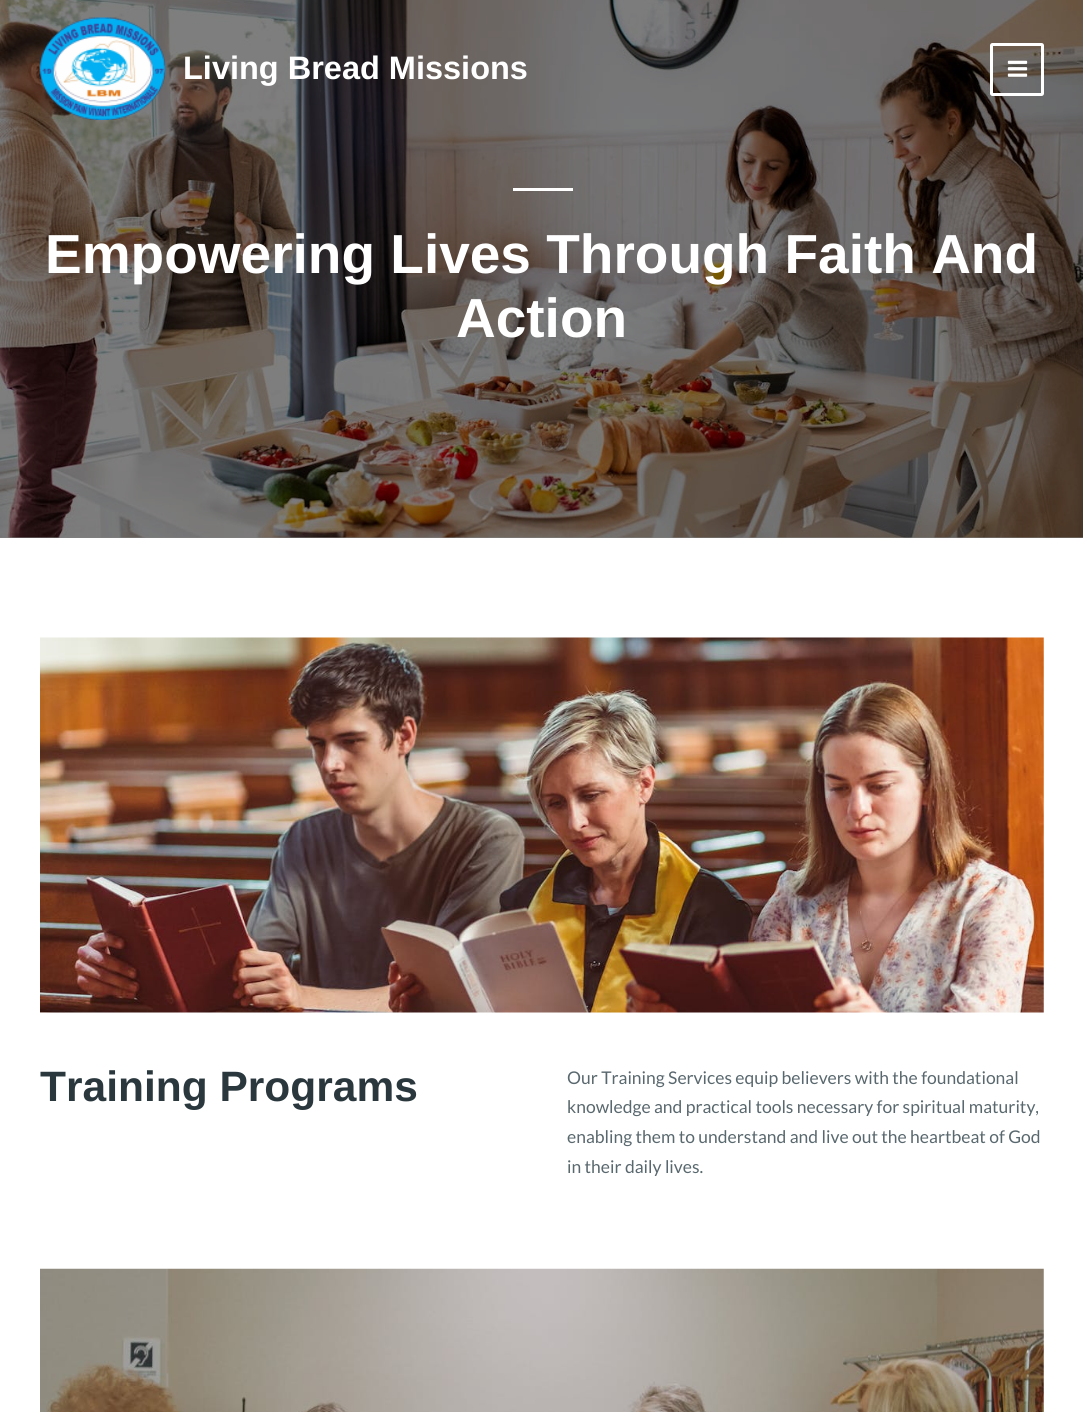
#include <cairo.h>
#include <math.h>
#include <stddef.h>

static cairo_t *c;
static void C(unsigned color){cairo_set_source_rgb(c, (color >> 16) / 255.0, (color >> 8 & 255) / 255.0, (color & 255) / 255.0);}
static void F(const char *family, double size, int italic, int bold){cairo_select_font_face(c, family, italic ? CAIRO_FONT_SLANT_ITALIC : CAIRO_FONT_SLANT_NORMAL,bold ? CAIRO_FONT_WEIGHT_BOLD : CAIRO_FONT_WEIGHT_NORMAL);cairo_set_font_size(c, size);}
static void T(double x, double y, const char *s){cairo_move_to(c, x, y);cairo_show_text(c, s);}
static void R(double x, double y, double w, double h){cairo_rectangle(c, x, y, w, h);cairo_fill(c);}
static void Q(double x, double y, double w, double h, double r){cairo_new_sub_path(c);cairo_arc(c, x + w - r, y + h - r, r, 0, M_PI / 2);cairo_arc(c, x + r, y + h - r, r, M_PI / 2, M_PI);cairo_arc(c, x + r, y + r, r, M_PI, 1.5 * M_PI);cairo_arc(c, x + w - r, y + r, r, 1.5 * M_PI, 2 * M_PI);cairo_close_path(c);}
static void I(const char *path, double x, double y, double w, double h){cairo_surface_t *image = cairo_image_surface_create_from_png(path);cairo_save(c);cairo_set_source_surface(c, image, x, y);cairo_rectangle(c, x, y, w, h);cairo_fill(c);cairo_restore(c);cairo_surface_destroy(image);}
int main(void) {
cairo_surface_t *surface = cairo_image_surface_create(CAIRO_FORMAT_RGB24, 1083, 1412);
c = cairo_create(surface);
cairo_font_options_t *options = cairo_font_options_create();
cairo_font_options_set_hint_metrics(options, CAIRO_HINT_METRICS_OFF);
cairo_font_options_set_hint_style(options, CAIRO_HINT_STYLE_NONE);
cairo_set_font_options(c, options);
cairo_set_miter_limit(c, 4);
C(0xffffff);
cairo_paint(c);
C(0x808080);
R(0,537,1083,1);
I("3.png",0,0,1083,538);
I("1.png",40,17,125,103);
F("Liberation Sans",32.5,0,1);
C(0xffffff);
T(183,79,"Living Bread Missions");
Q(991.5,44.5,51,50,1);
cairo_set_line_width(c,3);
cairo_stroke(c);
I("2.png",1007,60,21,17);
R(513,188,60,3);
F("Liberation Sans",55,0,1);
T(45,273,"Empowering Lives Through Faith And");
T(456,337,"Action");
I("4.png",40,637,1004,376);
F("Liberation Sans",42.5,0,1);
C(0x2a383e);
T(40,1101,"Training Programs");
F("Lato",17.5,0,0);
C(0x59686e);
T(567,1084,"Our Training Services equip believers with the foundational");
T(567,1113,"knowledge and practical tools necessary for spiritual maturity,");
T(567,1143,"enabling them to understand and live out the heartbeat of God");
T(567,1173,"in their daily lives.");
I("5.png",40,1268,1004,144);
cairo_surface_write_to_png(surface, "o.png");
cairo_font_options_destroy(options);
cairo_destroy(c);
cairo_surface_destroy(surface);
return 0;
}
